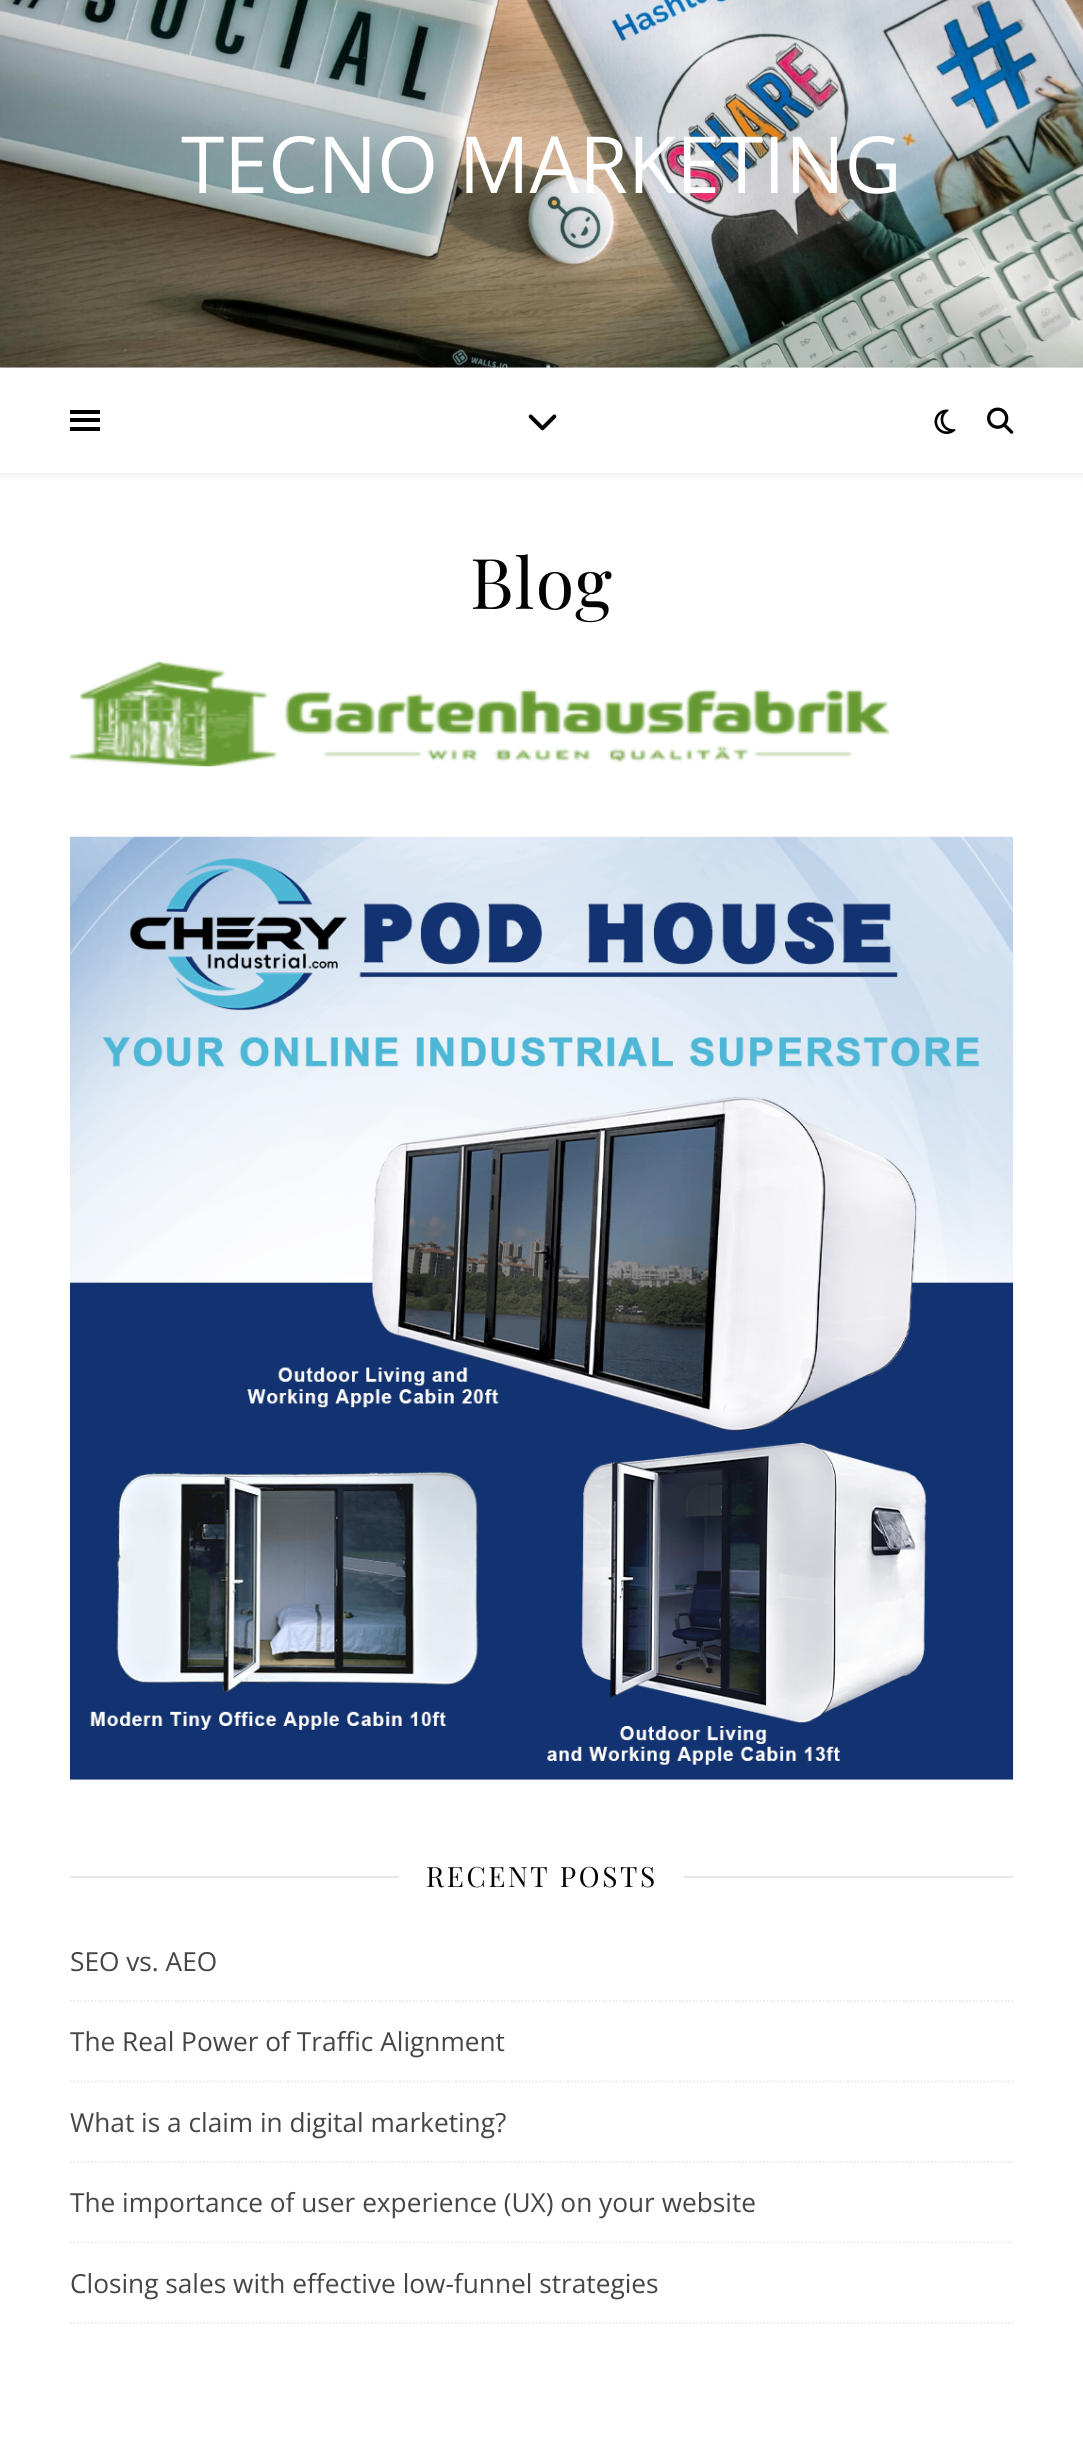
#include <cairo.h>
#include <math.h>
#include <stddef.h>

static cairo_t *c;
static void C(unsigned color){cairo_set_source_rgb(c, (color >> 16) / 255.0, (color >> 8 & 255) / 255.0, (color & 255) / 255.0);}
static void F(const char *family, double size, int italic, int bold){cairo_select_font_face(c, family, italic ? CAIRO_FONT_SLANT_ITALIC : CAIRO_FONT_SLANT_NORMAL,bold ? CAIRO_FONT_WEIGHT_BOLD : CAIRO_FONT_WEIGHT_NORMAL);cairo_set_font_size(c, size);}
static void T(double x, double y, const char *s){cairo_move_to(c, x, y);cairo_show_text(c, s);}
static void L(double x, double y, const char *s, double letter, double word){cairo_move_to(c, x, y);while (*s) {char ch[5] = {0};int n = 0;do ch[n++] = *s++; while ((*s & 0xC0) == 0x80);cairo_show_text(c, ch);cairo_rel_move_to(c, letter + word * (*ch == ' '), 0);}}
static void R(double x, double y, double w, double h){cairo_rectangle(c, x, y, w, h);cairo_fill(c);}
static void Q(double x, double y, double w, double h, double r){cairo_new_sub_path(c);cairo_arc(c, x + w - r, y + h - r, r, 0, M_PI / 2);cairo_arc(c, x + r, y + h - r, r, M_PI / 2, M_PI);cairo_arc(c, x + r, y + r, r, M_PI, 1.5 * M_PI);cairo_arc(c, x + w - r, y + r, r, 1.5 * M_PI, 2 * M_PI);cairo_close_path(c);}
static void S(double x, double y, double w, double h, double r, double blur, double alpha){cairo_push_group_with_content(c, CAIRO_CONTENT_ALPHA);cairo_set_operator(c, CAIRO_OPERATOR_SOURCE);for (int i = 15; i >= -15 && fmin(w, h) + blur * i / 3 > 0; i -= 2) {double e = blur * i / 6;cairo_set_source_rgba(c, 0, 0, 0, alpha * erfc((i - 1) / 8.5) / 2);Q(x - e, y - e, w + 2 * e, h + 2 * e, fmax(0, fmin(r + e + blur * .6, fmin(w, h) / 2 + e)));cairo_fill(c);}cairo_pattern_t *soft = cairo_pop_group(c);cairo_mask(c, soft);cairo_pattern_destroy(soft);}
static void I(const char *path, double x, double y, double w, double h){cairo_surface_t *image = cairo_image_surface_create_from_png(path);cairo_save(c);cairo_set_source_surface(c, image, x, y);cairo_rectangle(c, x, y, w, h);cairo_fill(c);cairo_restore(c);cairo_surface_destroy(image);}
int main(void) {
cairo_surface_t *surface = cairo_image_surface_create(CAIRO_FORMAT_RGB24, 1083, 2445);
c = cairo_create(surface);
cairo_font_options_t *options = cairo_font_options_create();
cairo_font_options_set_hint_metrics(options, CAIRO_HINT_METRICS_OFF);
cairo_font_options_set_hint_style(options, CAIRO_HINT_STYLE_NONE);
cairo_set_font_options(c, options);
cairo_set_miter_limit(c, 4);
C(0xffffff);
cairo_paint(c);
I("1.png",0,0,1083,368);
F("Open Sans",78.75,0,0);
C(0xffffff);
T(181,193,"TECNO MARKETING");
C(0x000000);
S(0,369,1083,105,0,4.5,.1);
C(0xffffff);
R(0,368,1083,105);
C(0x000000);
R(70,410,30,4);
R(70,418,30,4);
R(70,427,30,4);
I("2.png",528,414,29,17);
I("3.png",934,409,22,25);
I("4.png",987,407,27,27);
F("Playfair Display",70,0,0);
C(0x030303);
L(470,609,"Blog",1,0);
I("5.png",70,661,819,106);
I("6.png",70,836,944,944);
C(0xe8e8e8);
R(70,1876,329,2);
F("Playfair Display",28,0,0);
C(0x030303);
L(426,1887,"RECENT POSTS",2.6,0);
C(0xe8e8e8);
R(684,1876,329,2);
cairo_new_path(c);
cairo_move_to(c,70,2001);
cairo_line_to(c,1013,2001);
cairo_set_line_width(c,1.8);
cairo_set_dash(c,(double[]){1.75,1.75},2,0);
cairo_stroke(c);
F("Open Sans",26.25,0,0);
C(0x464646);
T(70,1971,"SEO vs. AEO");
cairo_new_path(c);
cairo_move_to(c,70,2081.5);
cairo_line_to(c,1013,2081.5);
C(0xe8e8e8);
cairo_stroke(c);
C(0x464646);
T(70,2051,"The Real Power of Traffic Alignment");
cairo_new_path(c);
cairo_move_to(c,70,2162);
cairo_line_to(c,1013,2162);
C(0xe8e8e8);
cairo_stroke(c);
C(0x464646);
T(70,2132,"What is a claim in digital marketing?");
cairo_new_path(c);
cairo_move_to(c,70,2242.5);
cairo_line_to(c,1013,2242.5);
C(0xe8e8e8);
cairo_stroke(c);
C(0x464646);
T(70,2212,"The importance of user experience (UX) on your website");
cairo_new_path(c);
cairo_move_to(c,70,2323);
cairo_line_to(c,1013,2323);
C(0xe8e8e8);
cairo_stroke(c);
C(0x464646);
T(70,2293,"Closing sales with effective low-funnel strategies");
cairo_surface_write_to_png(surface, "o.png");
cairo_font_options_destroy(options);
cairo_destroy(c);
cairo_surface_destroy(surface);
return 0;
}
